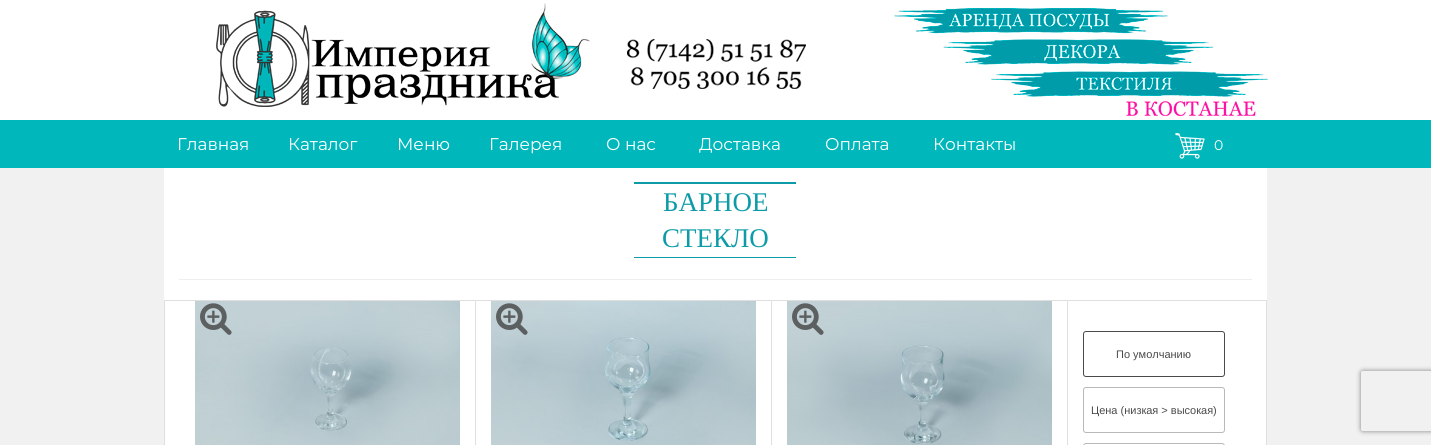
#include <cairo.h>
#include <math.h>
#include <stddef.h>

static cairo_t *c;
static void C(unsigned color){cairo_set_source_rgb(c, (color >> 16) / 255.0, (color >> 8 & 255) / 255.0, (color & 255) / 255.0);}
static void F(const char *family, double size, int italic, int bold){cairo_select_font_face(c, family, italic ? CAIRO_FONT_SLANT_ITALIC : CAIRO_FONT_SLANT_NORMAL,bold ? CAIRO_FONT_WEIGHT_BOLD : CAIRO_FONT_WEIGHT_NORMAL);cairo_set_font_size(c, size);}
static void T(double x, double y, const char *s){cairo_move_to(c, x, y);cairo_show_text(c, s);}
static void R(double x, double y, double w, double h){cairo_rectangle(c, x, y, w, h);cairo_fill(c);}
static void Q(double x, double y, double w, double h, double r){cairo_new_sub_path(c);cairo_arc(c, x + w - r, y + h - r, r, 0, M_PI / 2);cairo_arc(c, x + r, y + h - r, r, M_PI / 2, M_PI);cairo_arc(c, x + r, y + r, r, M_PI, 1.5 * M_PI);cairo_arc(c, x + w - r, y + r, r, 1.5 * M_PI, 2 * M_PI);cairo_close_path(c);}
static void S(double x, double y, double w, double h, double r, double blur, double alpha){cairo_push_group_with_content(c, CAIRO_CONTENT_ALPHA);cairo_set_operator(c, CAIRO_OPERATOR_SOURCE);for (int i = 15; i >= -15 && fmin(w, h) + blur * i / 3 > 0; i -= 2) {double e = blur * i / 6;cairo_set_source_rgba(c, 0, 0, 0, alpha * erfc((i - 1) / 8.5) / 2);Q(x - e, y - e, w + 2 * e, h + 2 * e, fmax(0, fmin(r + e + blur * .6, fmin(w, h) / 2 + e)));cairo_fill(c);}cairo_pattern_t *soft = cairo_pop_group(c);cairo_mask(c, soft);cairo_pattern_destroy(soft);}
static void I(const char *path, double x, double y, double w, double h){cairo_surface_t *image = cairo_image_surface_create_from_png(path);cairo_save(c);cairo_set_source_surface(c, image, x, y);cairo_rectangle(c, x, y, w, h);cairo_fill(c);cairo_restore(c);cairo_surface_destroy(image);}
int main(void) {
cairo_surface_t *surface = cairo_image_surface_create(CAIRO_FORMAT_RGB24, 1431, 445);
c = cairo_create(surface);
cairo_font_options_t *options = cairo_font_options_create();
cairo_font_options_set_hint_metrics(options, CAIRO_HINT_METRICS_OFF);
cairo_font_options_set_hint_style(options, CAIRO_HINT_STYLE_NONE);
cairo_set_font_options(c, options);
cairo_set_miter_limit(c, 4);
C(0xf1f1f1);
cairo_paint(c);
I("1.png",0,0,1431,120);
C(0x00b8bc);
R(0,120,1431,48);
F("Montserrat",17,0,0);
C(0xffffff);
T(177,150,"Главная");
T(288,150,"Каталог");
T(397,150,"Меню");
T(489,150,"Галерея");
T(606,150,"О нас");
T(699,150,"Доставка");
T(825,150,"Оплата");
T(933,150,"Контакты");
I("2.png",1175,133,30,26);
F("Montserrat",14,0,0);
T(1214,150,"0");
R(164,168,1103,277);
C(0x0d9ba8);
R(634,182,162,2);
R(634,257,162,1);
F("Liberation Serif",27,0,0);
T(663,211,"БАРНОЕ");
T(662,247,"СТЕКЛО");
C(0xeeeeee);
R(179,279,1073,1);
cairo_rectangle(c,164.5,300.5,1102,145);
C(0xdfdfdf);
cairo_set_line_width(c,1);
cairo_stroke(c);
R(475,301,1,144);
I("3.png",195,301,265,144);
I("4.png",200,303,32,32);
R(771,301,1,144);
I("5.png",491,301,265,144);
I("6.png",496,303,32,32);
R(1067,301,1,144);
I("7.png",787,301,265,144);
I("8.png",792,303,32,32);
Q(1083.5,331.5,141,45,2.5);
C(0x4a4a4a);
cairo_stroke(c);
F("Liberation Sans",11,0,0);
T(1116,358,"По умолчанию");
Q(1083.5,387.5,141,45,2.5);
C(0xb9b9b9);
cairo_stroke(c);
C(0x4a4a4a);
T(1091,414,"Цена (низкая > высокая)");
Q(1083.5,443.5,141,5,2.5);
C(0xb9b9b9);
cairo_stroke(c);
cairo_save(c);
cairo_set_fill_rule(c,CAIRO_FILL_RULE_EVEN_ODD);
cairo_new_path(c);
cairo_move_to(c,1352,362);
cairo_line_to(c,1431,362);
cairo_line_to(c,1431,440);
cairo_line_to(c,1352,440);
cairo_close_path(c);
cairo_move_to(c,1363,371);
cairo_line_to(c,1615,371);
cairo_curve_to(c,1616,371,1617,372,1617,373);
cairo_line_to(c,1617,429);
cairo_curve_to(c,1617,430,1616,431,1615,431);
cairo_line_to(c,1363,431);
cairo_curve_to(c,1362,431,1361,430,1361,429);
cairo_line_to(c,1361,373);
cairo_curve_to(c,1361,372,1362,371,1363,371);
cairo_close_path(c);
cairo_clip(c);
C(0x808080);
S(1361,371,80,60,2,2.5,1);
cairo_restore(c);
cairo_surface_write_to_png(surface, "o.png");
cairo_font_options_destroy(options);
cairo_destroy(c);
cairo_surface_destroy(surface);
return 0;
}
